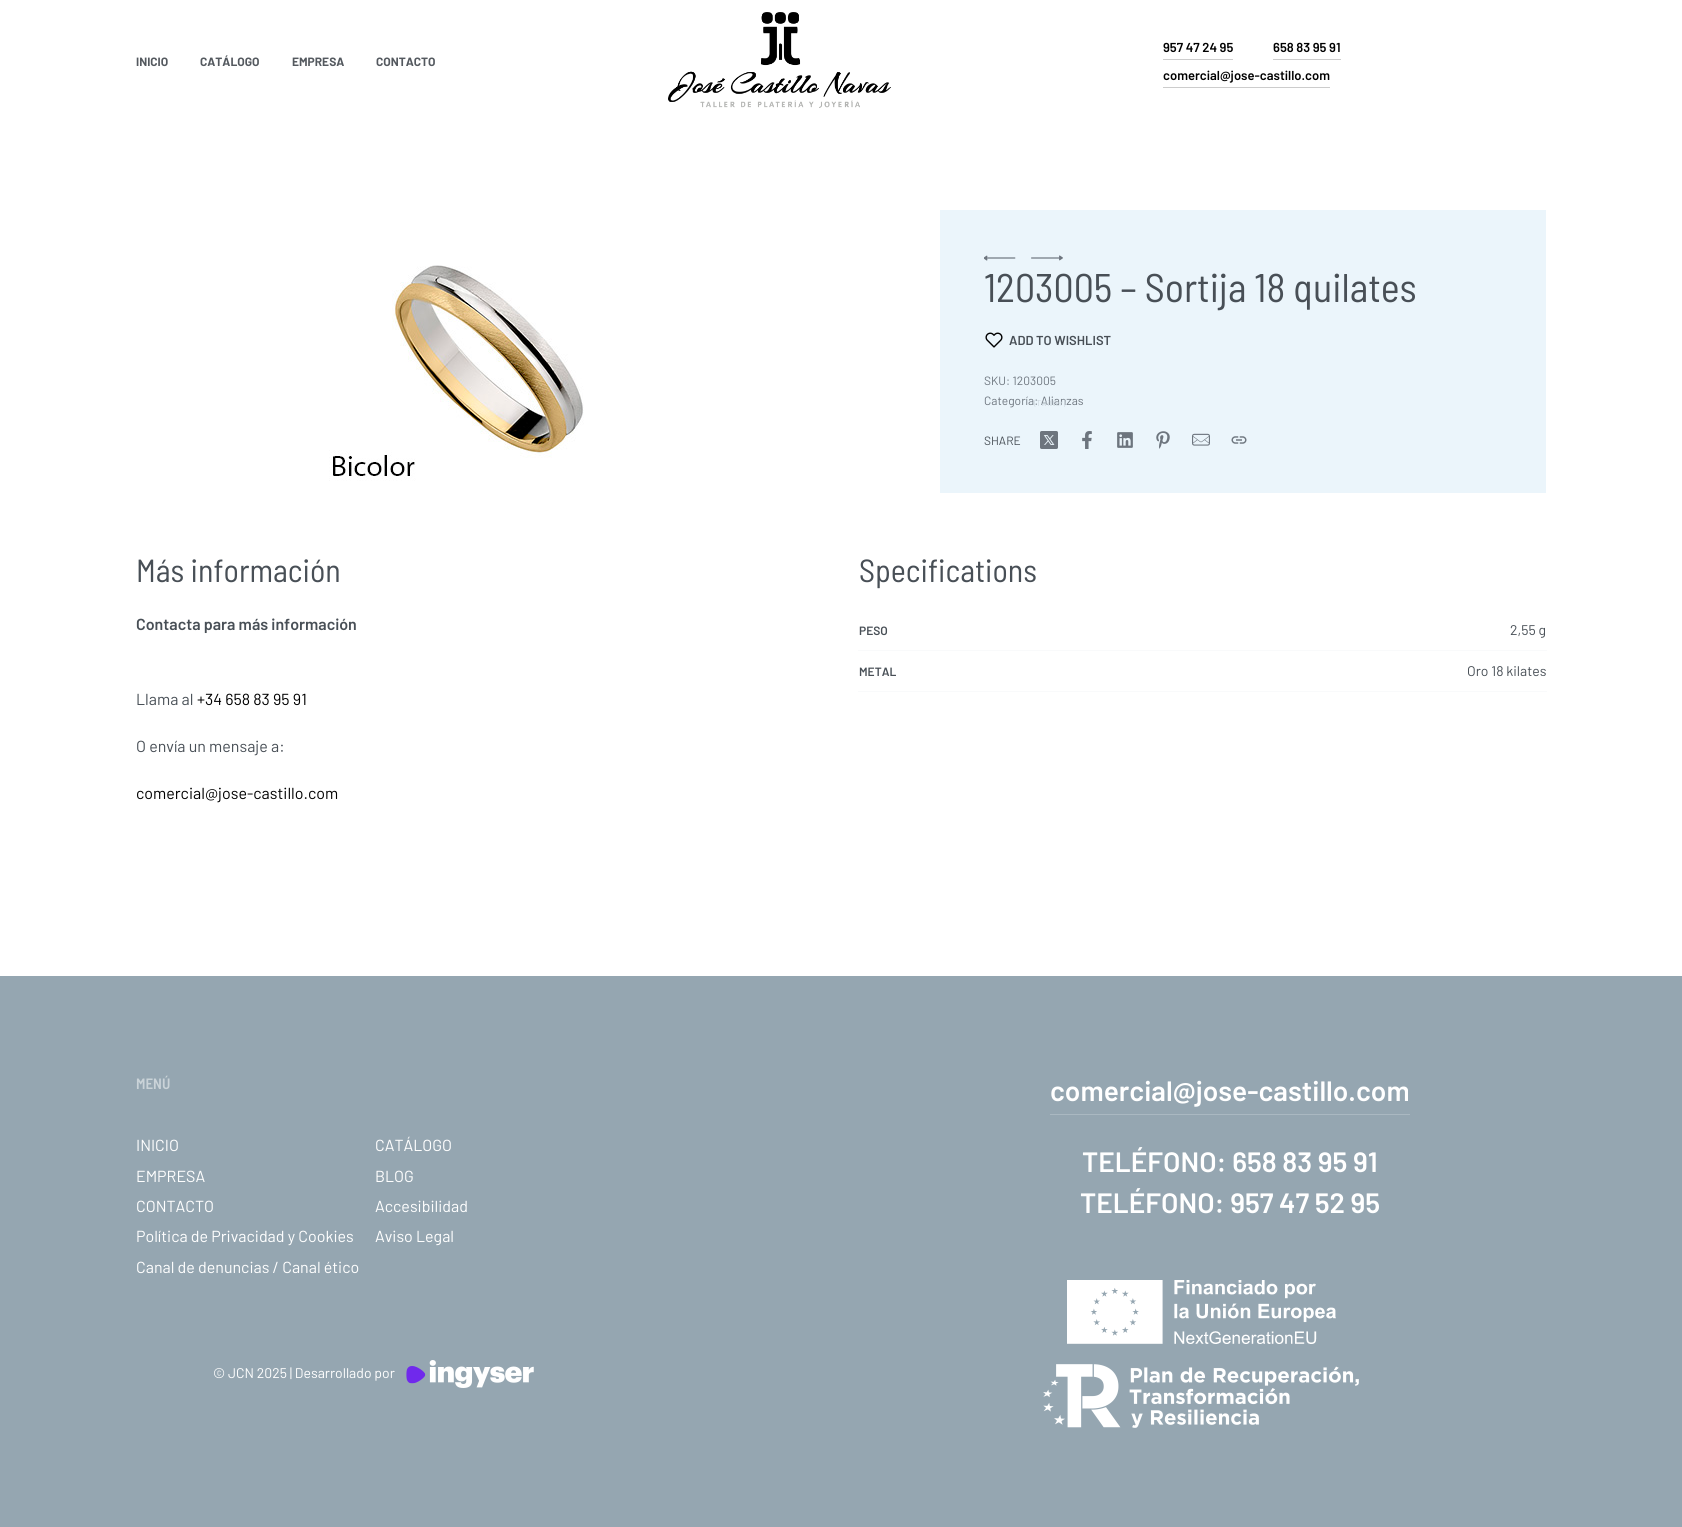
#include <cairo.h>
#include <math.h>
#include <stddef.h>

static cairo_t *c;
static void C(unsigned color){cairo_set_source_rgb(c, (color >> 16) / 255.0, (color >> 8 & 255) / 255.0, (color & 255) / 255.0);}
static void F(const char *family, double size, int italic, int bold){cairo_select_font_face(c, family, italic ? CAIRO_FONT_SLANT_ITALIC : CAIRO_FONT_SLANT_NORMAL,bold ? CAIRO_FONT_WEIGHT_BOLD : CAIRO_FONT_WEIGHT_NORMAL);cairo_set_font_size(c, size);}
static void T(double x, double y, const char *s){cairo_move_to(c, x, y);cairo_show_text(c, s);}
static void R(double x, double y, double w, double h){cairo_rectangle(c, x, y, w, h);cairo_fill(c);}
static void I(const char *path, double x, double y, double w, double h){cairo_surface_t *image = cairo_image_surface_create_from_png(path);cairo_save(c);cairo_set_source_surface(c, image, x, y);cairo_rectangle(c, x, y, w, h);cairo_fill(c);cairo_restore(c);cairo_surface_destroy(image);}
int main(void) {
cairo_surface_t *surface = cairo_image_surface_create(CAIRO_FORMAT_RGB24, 1682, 1527);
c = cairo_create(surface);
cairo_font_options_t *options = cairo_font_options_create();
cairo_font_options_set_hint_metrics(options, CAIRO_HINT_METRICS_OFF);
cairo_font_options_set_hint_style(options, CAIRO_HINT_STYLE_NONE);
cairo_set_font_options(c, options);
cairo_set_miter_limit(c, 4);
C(0xffffff);
cairo_paint(c);
F("Barlow",12,0,1);
C(0x54595f);
T(136,66,"INICIO");
T(200,66,"CATÁLOGO");
T(292,66,"EMPRESA");
T(376,66,"CONTACTO");
I("1.png",668,12,223,96);
F("Barlow SemiBold",13,0,0);
C(0x000000);
T(1163,52,"957 47 24 95");
C(0xcccccc);
R(1163,59,70,1);
C(0x000000);
T(1273,52,"658 83 95 91");
C(0xcccccc);
R(1273,59,68,1);
C(0x000000);
T(1163,80,"comercial@jose-castillo.com");
C(0xcccccc);
R(1163,87,167,1);
I("2.png",329,265,255,216);
C(0xebf5fb);
R(940,210,606,283);
I("3.png",984,255,32,6);
I("4.png",1031,255,32,6);
F("Barlow Semi Condensed",40,0,0);
C(0x484f56);
T(984,302,"1203005 – Sortija 18 quilates");
I("5.png",985,332,18,16);
F("Barlow SemiBold",13,0,0);
T(1009,345,"ADD TO WISHLIST");
F("Barlow",12,0,0);
C(0x6d757e);
T(984,385,"SKU: 1203005");
T(984,405,"Categoría: Alianzas");
F("Barlow",8.5,0,0);
C(0xced8df);
T(1034,406,"(Twitter)");
I("6.png",1040,431,18,18);
I("7.png",1082,431,10,18);
I("8.png",1117,432,16,16);
I("9.png",1156,431,14,18);
I("10.png",1192,433,18,13);
I("11.png",1231,436,16,8);
F("Barlow",12,0,0);
C(0x484f56);
T(984,445,"SHARE");
F("Barlow Semi Condensed",32,0,0);
T(136,582,"Más información");
F("Barlow SemiBold",16,0,0);
T(136,630,"Contacta para más información");
F("Barlow",16,0,0);
T(136,705,"Llama al");
C(0x000000);
T(197,705,"+34 658 83 95 91");
C(0x484f56);
T(136,752,"O envía un mensaje a:");
C(0x000000);
T(136,799,"comercial@jose-castillo.com");
F("Barlow Semi Condensed",32,0,0);
C(0x484f56);
T(859,582,"Specifications");
C(0xf9fafb);
R(858,650,689,1);
F("Barlow SemiBold",12,0,0);
C(0x484f56);
T(859,635,"PESO");
F("Barlow",14,0,0);
T(1510,635,"2,55 g");
C(0xf9fafb);
R(858,691,689,1);
F("Barlow SemiBold",12,0,0);
C(0x484f56);
T(859,676,"METAL");
F("Barlow",14,0,0);
T(1467,676,"Oro 18 kilates");
C(0x95a6b1);
R(0,976,1682,551);
F("Barlow Semi Condensed SemiBold",15,0,0);
C(0xcad3d8);
T(136,1089,"MENÚ");
F("Barlow",16,0,0);
C(0xffffff);
T(136,1151,"INICIO");
T(375,1151,"CATÁLOGO");
T(136,1182,"EMPRESA");
T(375,1182,"BLOG");
T(136,1212,"CONTACTO");
T(375,1212,"Accesibilidad");
T(136,1242,"Política de Privacidad y Cookies");
T(375,1242,"Aviso Legal");
T(136,1273,"Canal de denuncias / Canal ético");
F("Barlow SemiBold",28,0,0);
T(1050,1101,"comercial@jose-castillo.com");
C(0xaab8c1);
R(1050,1114,360,1);
C(0xffffff);
T(1082,1172,"TELÉFONO: 658 83 95 91");
T(1080,1213,"TELÉFONO: 957 47 52 95");
F("Barlow",14,0,0);
T(213,1378,"© JCN 2025 | Desarrollado por");
I("12.png",406,1360,128,28);
I("13.png",1067,1280,269,64);
I("14.png",1043,1364,316,64);
cairo_surface_write_to_png(surface, "o.png");
cairo_font_options_destroy(options);
cairo_destroy(c);
cairo_surface_destroy(surface);
return 0;
}
